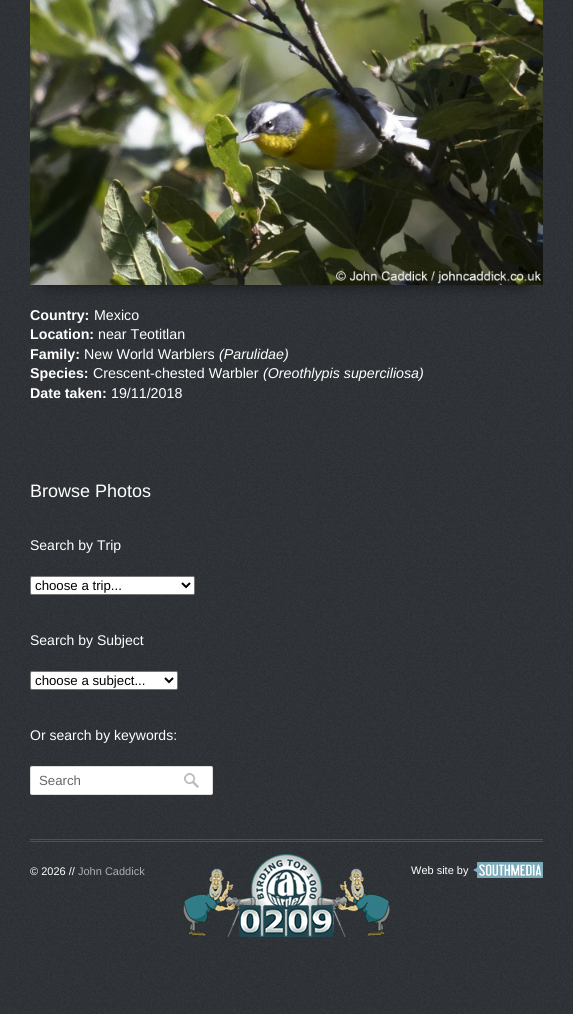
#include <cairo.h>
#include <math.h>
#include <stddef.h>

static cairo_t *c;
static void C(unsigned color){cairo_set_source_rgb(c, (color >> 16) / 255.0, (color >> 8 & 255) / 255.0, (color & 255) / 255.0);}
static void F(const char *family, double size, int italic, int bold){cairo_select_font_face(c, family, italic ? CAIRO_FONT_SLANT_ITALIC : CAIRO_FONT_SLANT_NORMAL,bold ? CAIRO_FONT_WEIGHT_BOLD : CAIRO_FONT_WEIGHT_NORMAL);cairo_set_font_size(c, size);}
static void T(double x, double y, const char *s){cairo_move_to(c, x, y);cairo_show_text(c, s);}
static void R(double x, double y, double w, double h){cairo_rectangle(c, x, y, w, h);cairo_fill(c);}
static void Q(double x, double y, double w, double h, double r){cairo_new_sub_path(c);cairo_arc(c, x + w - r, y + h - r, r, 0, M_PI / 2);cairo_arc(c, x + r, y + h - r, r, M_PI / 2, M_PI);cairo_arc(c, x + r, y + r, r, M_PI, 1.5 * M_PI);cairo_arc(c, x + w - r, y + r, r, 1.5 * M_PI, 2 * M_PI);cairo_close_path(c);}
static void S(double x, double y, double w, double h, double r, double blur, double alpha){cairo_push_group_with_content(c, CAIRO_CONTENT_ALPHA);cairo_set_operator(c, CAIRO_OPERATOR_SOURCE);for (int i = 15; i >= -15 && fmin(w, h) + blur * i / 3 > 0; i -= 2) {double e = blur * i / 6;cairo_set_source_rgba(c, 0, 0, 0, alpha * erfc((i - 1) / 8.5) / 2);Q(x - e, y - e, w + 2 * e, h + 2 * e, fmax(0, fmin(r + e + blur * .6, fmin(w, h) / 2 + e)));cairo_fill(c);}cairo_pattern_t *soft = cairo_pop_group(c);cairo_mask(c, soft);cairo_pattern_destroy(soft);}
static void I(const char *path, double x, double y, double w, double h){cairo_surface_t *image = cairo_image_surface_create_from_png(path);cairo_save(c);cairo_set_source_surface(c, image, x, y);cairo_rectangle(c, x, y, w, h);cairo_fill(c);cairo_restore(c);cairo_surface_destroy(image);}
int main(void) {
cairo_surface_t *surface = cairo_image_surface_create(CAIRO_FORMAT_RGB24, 573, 1014);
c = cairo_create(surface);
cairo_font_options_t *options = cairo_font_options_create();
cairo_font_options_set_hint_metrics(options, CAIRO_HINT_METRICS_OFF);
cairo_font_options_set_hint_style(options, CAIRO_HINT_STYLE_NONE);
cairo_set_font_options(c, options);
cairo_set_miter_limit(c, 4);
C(0xffffff);
cairo_paint(c);
I("1.png",0,0,573,1014);
cairo_save(c);
cairo_rectangle(c,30,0,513,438);
cairo_clip(c);
C(0x000000);
S(40,141,493,144,10,7.5,.6);
cairo_restore(c);
I("2.png",30,0,513,285);
F("Liberation Sans",14.25,0,1);
C(0xffffff);
T(30,320,"Country:");
F("Liberation Sans",14.25,0,0);
T(94,320,"Mexico");
F("Liberation Sans",14.25,0,1);
T(30,339,"Location:");
F("Liberation Sans",14.25,0,0);
T(98,339,"near Teotitlan");
F("Liberation Sans",14.25,0,1);
T(30,359,"Family:");
F("Liberation Sans",14.25,0,0);
T(84,359,"New World Warblers");
F("Liberation Sans",14.25,1,0);
T(219,359,"(Parulidae)");
F("Liberation Sans",14.25,0,1);
T(30,378,"Species:");
F("Liberation Sans",14.25,0,0);
T(93,378,"Crescent-chested Warbler");
F("Liberation Sans",14.25,1,0);
T(263,378,"(Oreothlypis superciliosa)");
F("Liberation Sans",14.25,0,1);
T(30,398,"Date taken:");
F("Liberation Sans",14.25,0,0);
T(111,398,"19/11/2018");
F("Liberation Sans",18,0,0);
T(30,497,"Browse Photos");
F("Liberation Sans",14,0,0);
T(30,550,"Search by Trip");
Q(30.5,576.5,164,18,1.5);
cairo_fill_preserve(c);
C(0x767676);
cairo_set_line_width(c,1);
cairo_stroke(c);
cairo_new_path(c);
cairo_move_to(c,182,583);
cairo_line_to(c,186,587);
cairo_line_to(c,190,583);
C(0x000000);
cairo_set_line_width(c,2);
cairo_stroke(c);
F("Liberation Sans",13.25,0,0);
T(35,590,"choose a trip...");
F("Liberation Sans",14,0,0);
C(0xffffff);
T(30,645,"Search by Subject");
Q(30.5,671.5,147,18,1.5);
cairo_fill_preserve(c);
C(0x767676);
cairo_set_line_width(c,1);
cairo_stroke(c);
cairo_new_path(c);
cairo_move_to(c,165,678);
cairo_line_to(c,169,682);
cairo_line_to(c,173,678);
C(0x000000);
cairo_set_line_width(c,2);
cairo_stroke(c);
F("Liberation Sans",13.25,0,0);
T(35,685,"choose a subject...");
F("Liberation Sans",14,0,0);
C(0xffffff);
T(30,740,"Or search by keywords:");
Q(30.5,766.5,182,28,1.5);
cairo_fill_preserve(c);
C(0xdddddd);
cairo_set_line_width(c,1);
cairo_stroke(c);
F("Liberation Sans",13.25,0,0);
C(0x666666);
T(39,785,"Search");
I("3.png",184,773,15,15);
C(0x4b515a);
R(30,839,513,1);
R(30,841,513,1);
F("Liberation Sans",11,0,0);
C(0xffffff);
T(30,875,"© 2026 //");
C(0xa9afb7);
T(78,875,"John Caddick");
I("4.png",183,854,207,83);
C(0xffffff);
T(411,874,"Web site by");
I("5.png",473,862,70,16);
cairo_surface_write_to_png(surface, "o.png");
cairo_font_options_destroy(options);
cairo_destroy(c);
cairo_surface_destroy(surface);
return 0;
}
